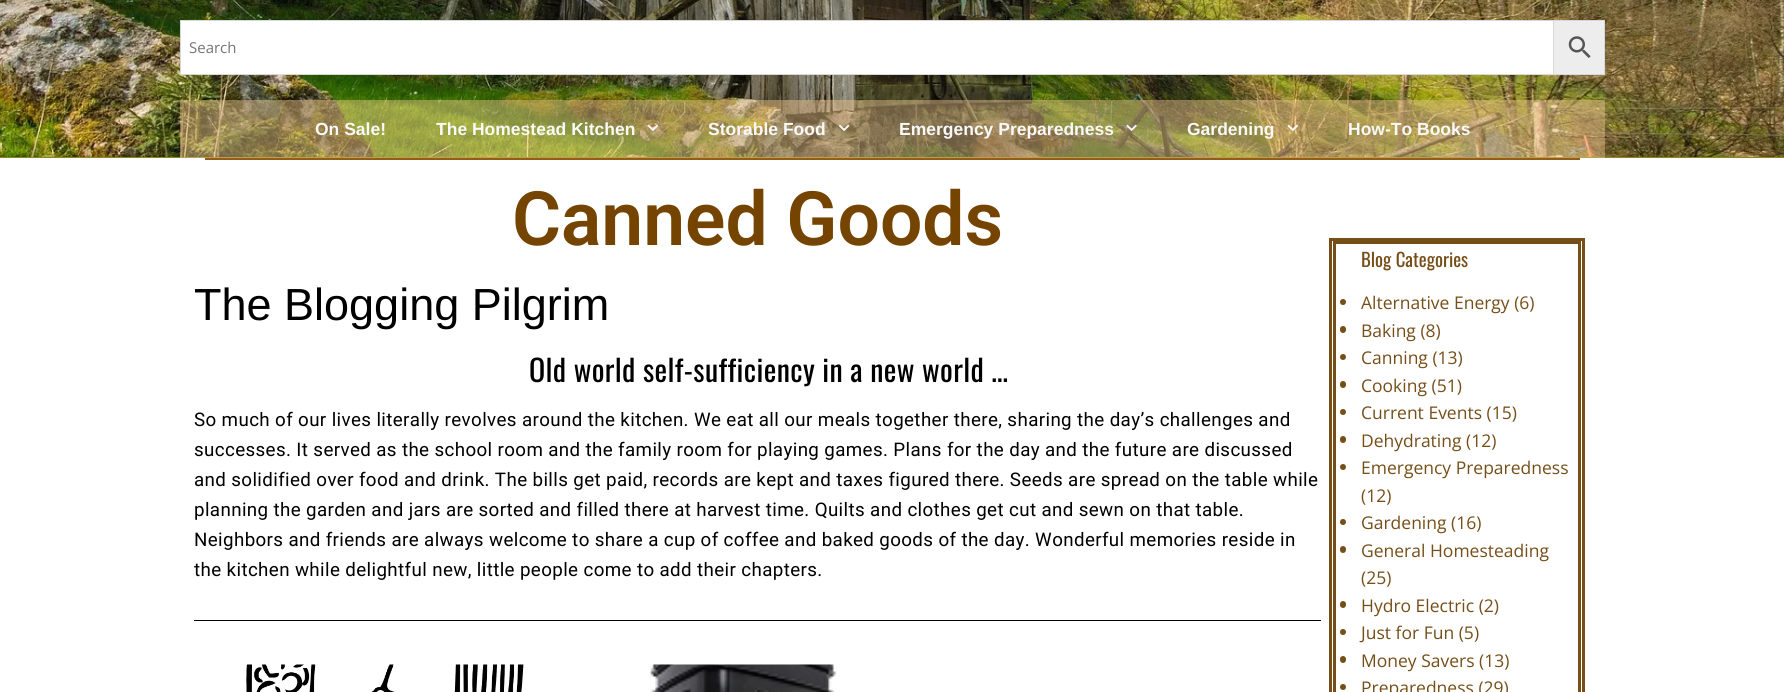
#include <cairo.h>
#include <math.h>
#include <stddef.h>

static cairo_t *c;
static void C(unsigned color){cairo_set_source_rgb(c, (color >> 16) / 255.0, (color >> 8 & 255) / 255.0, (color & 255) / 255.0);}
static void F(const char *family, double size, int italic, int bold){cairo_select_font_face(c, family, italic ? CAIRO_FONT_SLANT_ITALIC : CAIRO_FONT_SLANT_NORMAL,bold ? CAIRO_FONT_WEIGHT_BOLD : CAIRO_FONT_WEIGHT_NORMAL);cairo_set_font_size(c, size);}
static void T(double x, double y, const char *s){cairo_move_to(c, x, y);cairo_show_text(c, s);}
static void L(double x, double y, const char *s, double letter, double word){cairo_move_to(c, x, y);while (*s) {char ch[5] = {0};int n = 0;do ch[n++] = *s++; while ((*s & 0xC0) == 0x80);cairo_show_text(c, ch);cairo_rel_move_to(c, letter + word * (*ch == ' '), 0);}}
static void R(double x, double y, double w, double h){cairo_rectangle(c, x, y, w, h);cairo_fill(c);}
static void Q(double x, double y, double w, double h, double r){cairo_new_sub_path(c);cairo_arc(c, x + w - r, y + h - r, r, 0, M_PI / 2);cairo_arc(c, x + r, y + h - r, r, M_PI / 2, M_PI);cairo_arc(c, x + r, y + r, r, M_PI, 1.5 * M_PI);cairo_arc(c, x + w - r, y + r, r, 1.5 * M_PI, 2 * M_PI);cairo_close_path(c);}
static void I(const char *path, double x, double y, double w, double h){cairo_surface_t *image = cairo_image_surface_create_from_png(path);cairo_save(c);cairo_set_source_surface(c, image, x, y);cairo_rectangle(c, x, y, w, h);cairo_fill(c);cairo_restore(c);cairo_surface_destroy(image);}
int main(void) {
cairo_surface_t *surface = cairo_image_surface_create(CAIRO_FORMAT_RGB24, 1784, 692);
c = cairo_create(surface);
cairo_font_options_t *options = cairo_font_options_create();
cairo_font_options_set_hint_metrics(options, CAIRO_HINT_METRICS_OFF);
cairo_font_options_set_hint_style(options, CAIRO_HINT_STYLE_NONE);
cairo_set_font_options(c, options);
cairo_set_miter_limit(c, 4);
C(0xffffff);
cairo_paint(c);
C(0x89891b);
R(0,157,1784,1);
I("1.png",0,0,1784,157);
C(0xededed);
cairo_rectangle(c,1553.5,20.5,51,54);
cairo_fill_preserve(c);
C(0xd8d8d8);
cairo_set_line_width(c,1);
cairo_stroke(c);
C(0xffffff);
cairo_rectangle(c,180.5,20.5,1373,54);
cairo_fill_preserve(c);
C(0xd8d8d8);
cairo_stroke(c);
F("Open Sans",15,0,0);
C(0x757575);
T(189,53,"Search");
I("2.png",1568,36,23,22);
cairo_set_source_rgba(c,0.937,0.776,0.561,0.45);
R(180,100,1425,58);
F("Liberation Sans",17.5,0,1);
C(0xf9f9f9);
T(315,135,"On Sale!");
T(436,135,"The Homestead Kitchen");
I("3.png",647,124,11,7);
T(708,135,"Storable Food");
I("4.png",839,124,11,7);
T(899,135,"Emergency Preparedness");
I("5.png",1126,124,11,7);
T(1187,135,"Gardening");
I("6.png",1287,124,11,7);
T(1348,135,"How-To Books");
C(0x965c15);
R(205,158,1375,2);
F("Roboto SemiBold",75,0,0);
C(0x754400);
T(512,245,"Canned Goods");
F("Liberation Sans",45,0,0);
C(0x000000);
T(194,320,"The Blogging Pilgrim");
F("Oswald",30,0,0);
L(529,382,"Old world self-sufficiency in a new world …",.38,0);
F("Roboto",18.75,0,0);
L(194,426,"So much of our lives literally revolves around the kitchen. We eat all our meals together there, sharing the day’s challenges and",.38,0);
L(194,456,"successes. It served as the school room and the family room for playing games. Plans for the day and the future are discussed",.38,0);
L(194,486,"and solidified over food and drink. The bills get paid, records are kept and taxes figured there. Seeds are spread on the table while",.38,0);
L(194,516,"planning the garden and jars are sorted and filled there at harvest time. Quilts and clothes get cut and sewn on that table.",.38,0);
L(194,546,"Neighbors and friends are always welcome to share a cup of coffee and baked goods of the day. Wonderful memories reside in",.38,0);
L(194,576,"the kitchen while delightful new, little people come to add their chapters.",.38,0);
R(194,620,1127,1);
I("7.png",246,664,278,28);
I("8.png",649,664,188,28);
cairo_rectangle(c,1330.5,239.5,253,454);
C(0x754e18);
cairo_set_line_width(c,3);
cairo_stroke(c);
cairo_rectangle(c,1334.5,242.5,245,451);
cairo_stroke(c);
F("Oswald",18.75,0,0);
T(1361,267,"Blog Categories");
cairo_new_path(c);
cairo_arc(c,1343,302,3,0,2 * M_PI);
cairo_fill(c);
F("Open Sans",17.5,0,0);
T(1361,309,"Alternative Energy (6)");
Q(1340,326,6,7,3);
cairo_fill(c);
T(1361,337,"Baking (8)");
cairo_new_path(c);
cairo_arc(c,1343,357,3,0,2 * M_PI);
cairo_fill(c);
T(1361,364,"Canning (13)");
Q(1340,381,6,7,3);
cairo_fill(c);
T(1361,392,"Cooking (51)");
cairo_new_path(c);
cairo_arc(c,1343,412,3,0,2 * M_PI);
cairo_fill(c);
T(1361,419,"Current Events (15)");
Q(1340,436,6,7,3);
cairo_fill(c);
T(1361,447,"Dehydrating (12)");
cairo_new_path(c);
cairo_arc(c,1343,467,3,0,2 * M_PI);
cairo_fill(c);
T(1361,474,"Emergency Preparedness");
T(1361,502,"(12)");
cairo_new_path(c);
cairo_arc(c,1343,522,3,0,2 * M_PI);
cairo_fill(c);
T(1361,529,"Gardening (16)");
Q(1340,546,6,7,3);
cairo_fill(c);
T(1361,557,"General Homesteading");
T(1361,584,"(25)");
Q(1340,601,6,7,3);
cairo_fill(c);
T(1361,612,"Hydro Electric (2)");
cairo_new_path(c);
cairo_arc(c,1343,632,3,0,2 * M_PI);
cairo_fill(c);
T(1361,639,"Just for Fun (5)");
Q(1340,656,6,7,3);
cairo_fill(c);
T(1361,667,"Money Savers (13)");
cairo_new_path(c);
cairo_arc(c,1343,687,3,0,2 * M_PI);
cairo_fill(c);
T(1361,694,"Preparedness (29)");
cairo_surface_write_to_png(surface, "o.png");
cairo_font_options_destroy(options);
cairo_destroy(c);
cairo_surface_destroy(surface);
return 0;
}
